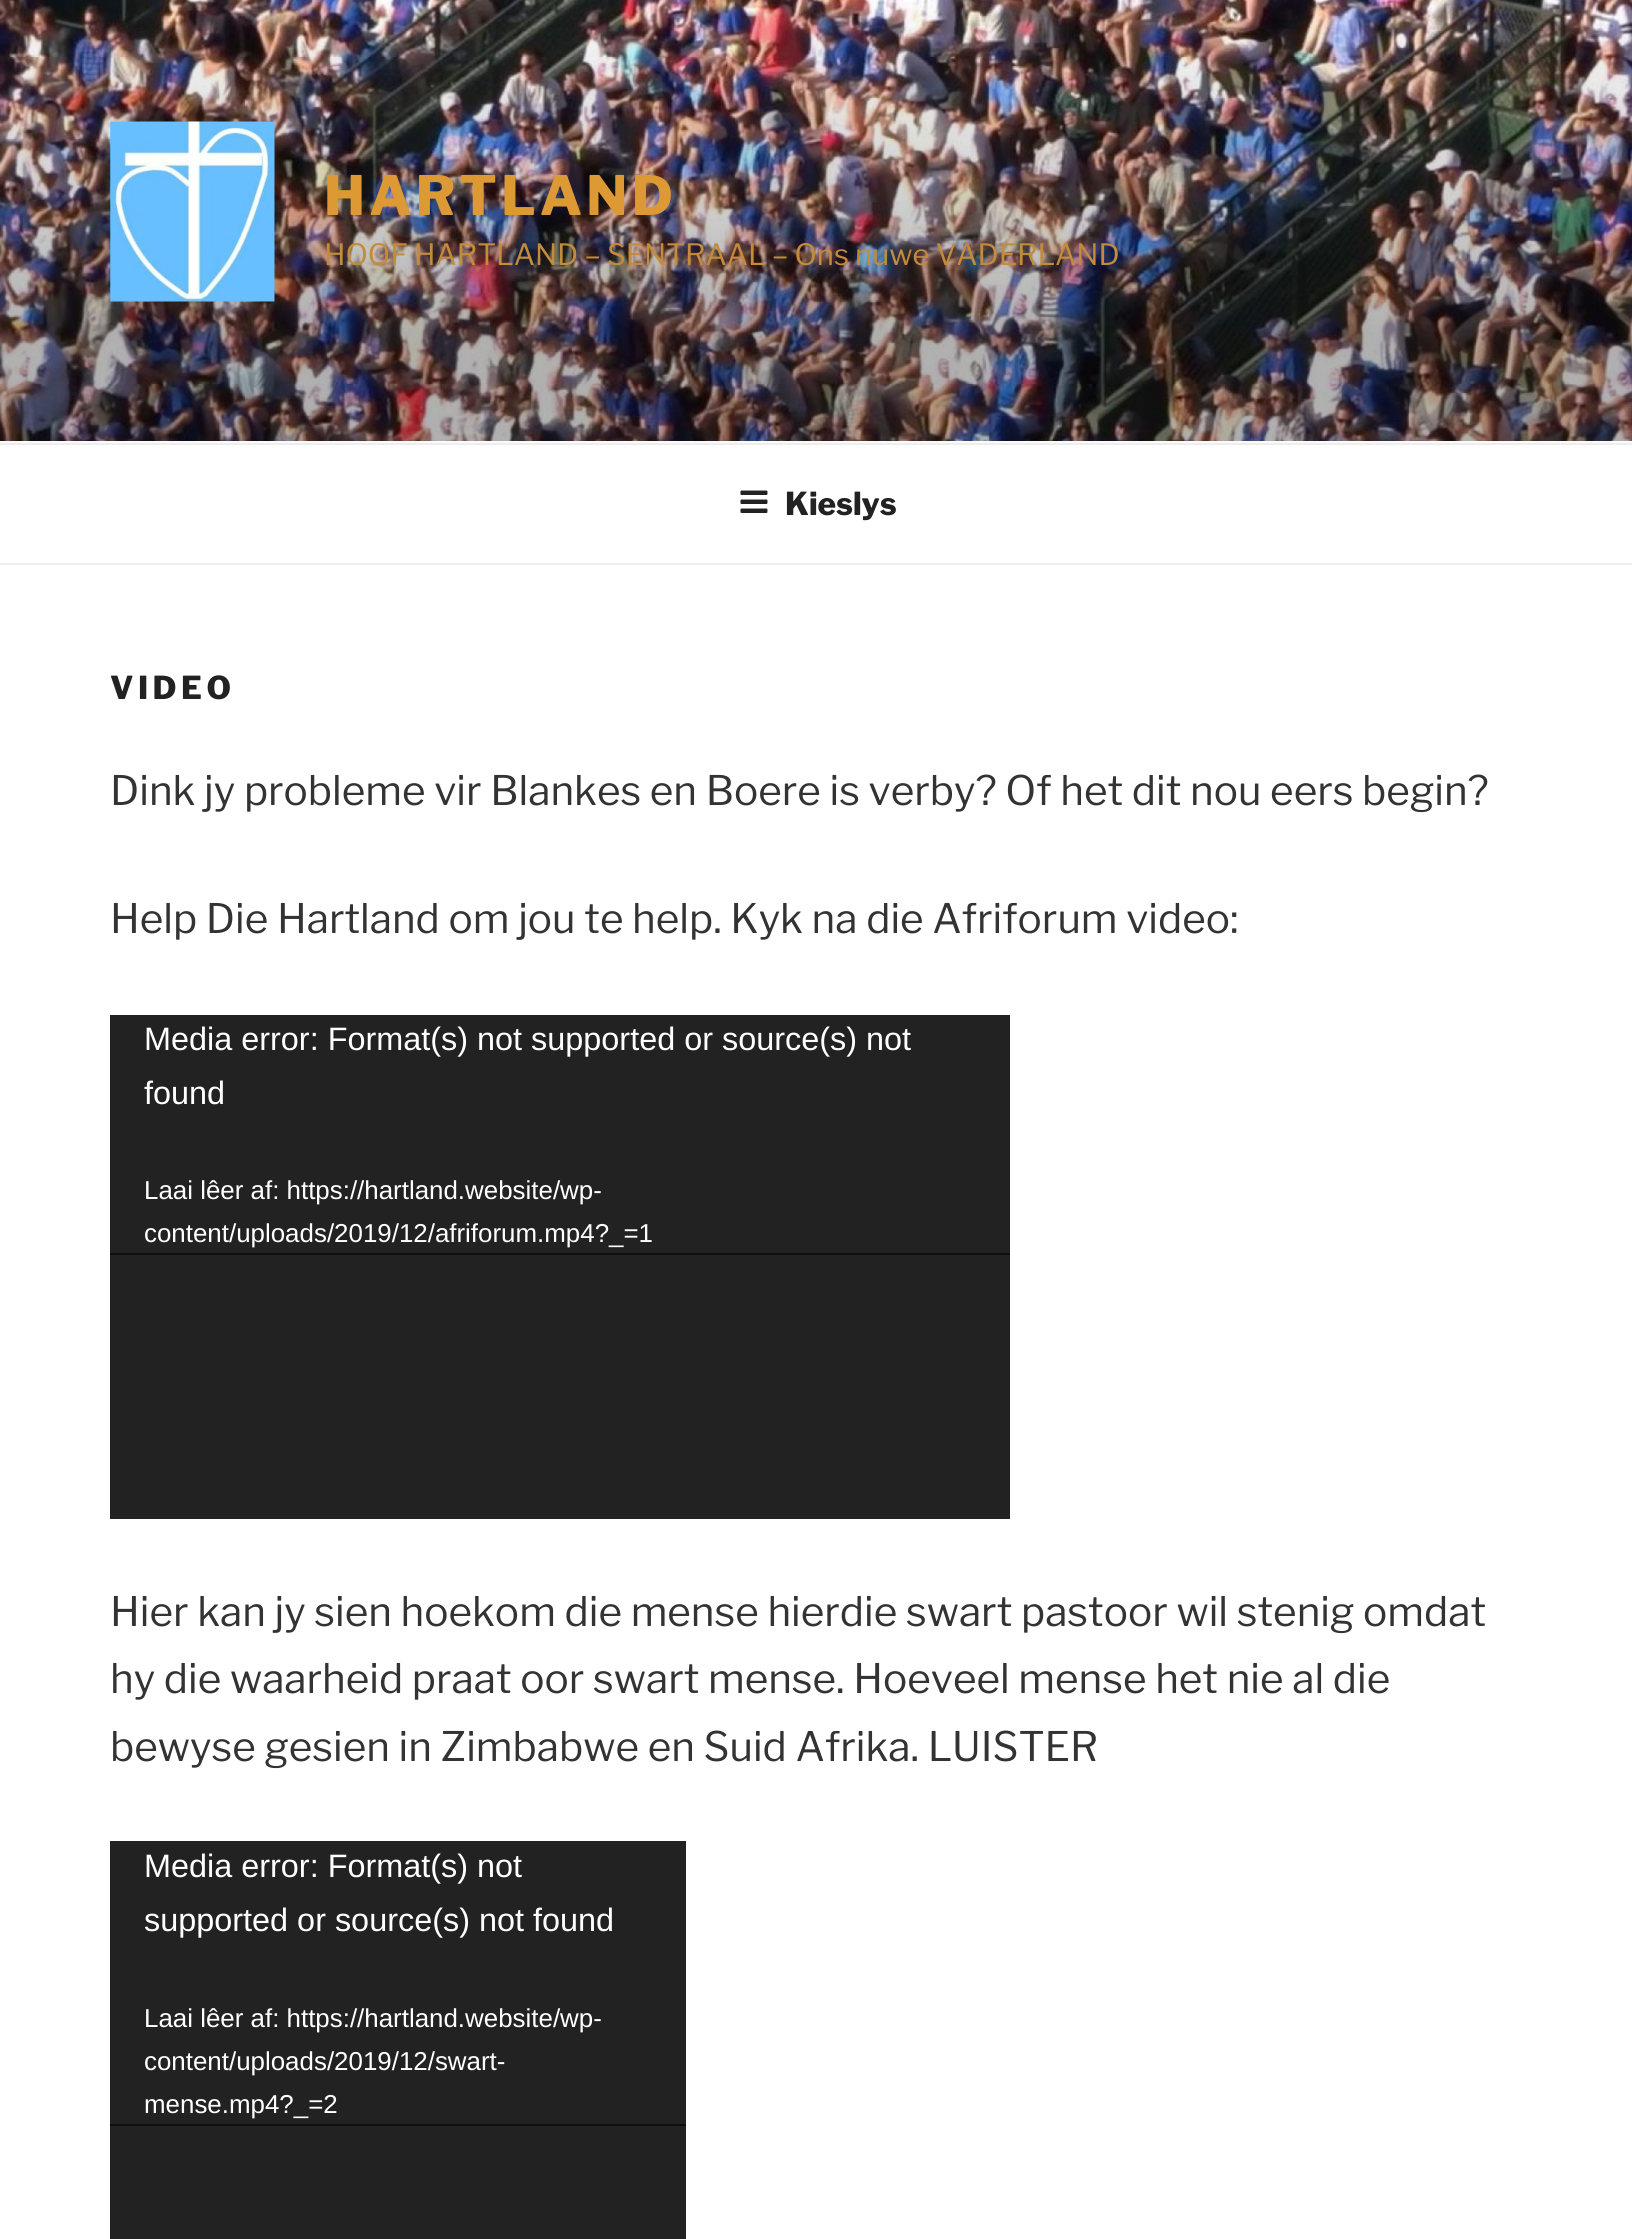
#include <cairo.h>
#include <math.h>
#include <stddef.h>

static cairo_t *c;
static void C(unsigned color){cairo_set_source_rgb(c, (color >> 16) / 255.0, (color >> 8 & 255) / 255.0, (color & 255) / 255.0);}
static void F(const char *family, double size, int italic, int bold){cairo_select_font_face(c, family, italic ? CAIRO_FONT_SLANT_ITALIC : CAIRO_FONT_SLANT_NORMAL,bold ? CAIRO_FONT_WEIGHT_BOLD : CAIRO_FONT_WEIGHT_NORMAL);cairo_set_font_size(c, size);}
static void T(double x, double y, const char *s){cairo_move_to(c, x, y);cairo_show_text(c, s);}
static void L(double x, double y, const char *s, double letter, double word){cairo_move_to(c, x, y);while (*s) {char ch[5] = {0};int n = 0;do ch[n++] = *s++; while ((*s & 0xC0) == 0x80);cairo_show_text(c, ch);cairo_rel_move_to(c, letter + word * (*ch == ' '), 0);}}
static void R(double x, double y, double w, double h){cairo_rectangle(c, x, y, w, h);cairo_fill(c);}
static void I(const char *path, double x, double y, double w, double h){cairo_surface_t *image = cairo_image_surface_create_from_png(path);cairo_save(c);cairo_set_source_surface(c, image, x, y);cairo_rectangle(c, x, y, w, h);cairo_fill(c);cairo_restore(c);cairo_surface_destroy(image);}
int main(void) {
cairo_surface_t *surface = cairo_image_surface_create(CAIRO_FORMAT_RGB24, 1632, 2239);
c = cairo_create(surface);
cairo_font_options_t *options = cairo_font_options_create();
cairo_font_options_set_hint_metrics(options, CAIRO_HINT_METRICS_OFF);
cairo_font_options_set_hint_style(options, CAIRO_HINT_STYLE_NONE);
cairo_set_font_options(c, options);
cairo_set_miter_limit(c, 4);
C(0xffffff);
cairo_paint(c);
C(0xfafafa);
R(0,441,1632,2);
I("1.png",0,0,1632,441);
I("2.png",110,121,165,181);
F("Libre Franklin ExtraBold",54,0,0);
C(0xdd9933);
L(324,215,"HARTLAND",4.25,0);
F("Libre Franklin",29.25,0,0);
C(0xc48b3a);
T(324,265,"HOOF HARTLAND – SENTRAAL – Ons nuwe VADERLAND");
C(0xeeeeee);
R(0,443,1632,2);
R(0,563,1632,2);
I("3.png",740,490,28,23);
F("Libre Franklin ExtraBold",31.5,0,0);
C(0x222222);
T(785,515,"Kieslys");
L(110,699,"VIDEO",4.5,0);
F("Libre Franklin",40.5,0,0);
C(0x333333);
T(110,805,"Dink jy probleme vir Blankes en Boere is verby? Of het dit nou eers begin?");
T(110,933,"Help Die Hartland om jou te help. Kyk na die Afriforum video:");
C(0x222222);
R(110,1015,900,504);
F("Liberation Sans",32.4,0,0);
C(0xffffff);
T(144,1050,"Media error: Format(s) not supported or source(s) not");
T(144,1104,"found");
C(0x0f0f0f);
R(110,1253,900,2);
F("Liberation Sans",25.9,0,0);
C(0xffffff);
T(144,1199,"Laai lêer af: https://hartland.website/wp-");
T(144,1242,"content/uploads/2019/12/afriforum.mp4?_=1");
F("Libre Franklin",40.5,0,0);
C(0x333333);
T(110,1626,"Hier kan jy sien hoekom die mense hierdie swart pastoor wil stenig omdat");
T(110,1693,"hy die waarheid praat oor swart mense. Hoeveel mense het nie al die");
T(110,1761,"bewyse gesien in Zimbabwe en Suid Afrika. LUISTER");
C(0x222222);
R(110,1841,576,398);
F("Liberation Sans",32.4,0,0);
C(0xffffff);
T(144,1877,"Media error: Format(s) not");
T(144,1931,"supported or source(s) not found");
C(0x0f0f0f);
R(110,2124,576,2);
F("Liberation Sans",25.9,0,0);
C(0xffffff);
T(144,2027,"Laai lêer af: https://hartland.website/wp-");
T(144,2070,"content/uploads/2019/12/swart-");
T(144,2113,"mense.mp4?_=2");
cairo_surface_write_to_png(surface, "o.png");
cairo_font_options_destroy(options);
cairo_destroy(c);
cairo_surface_destroy(surface);
return 0;
}
